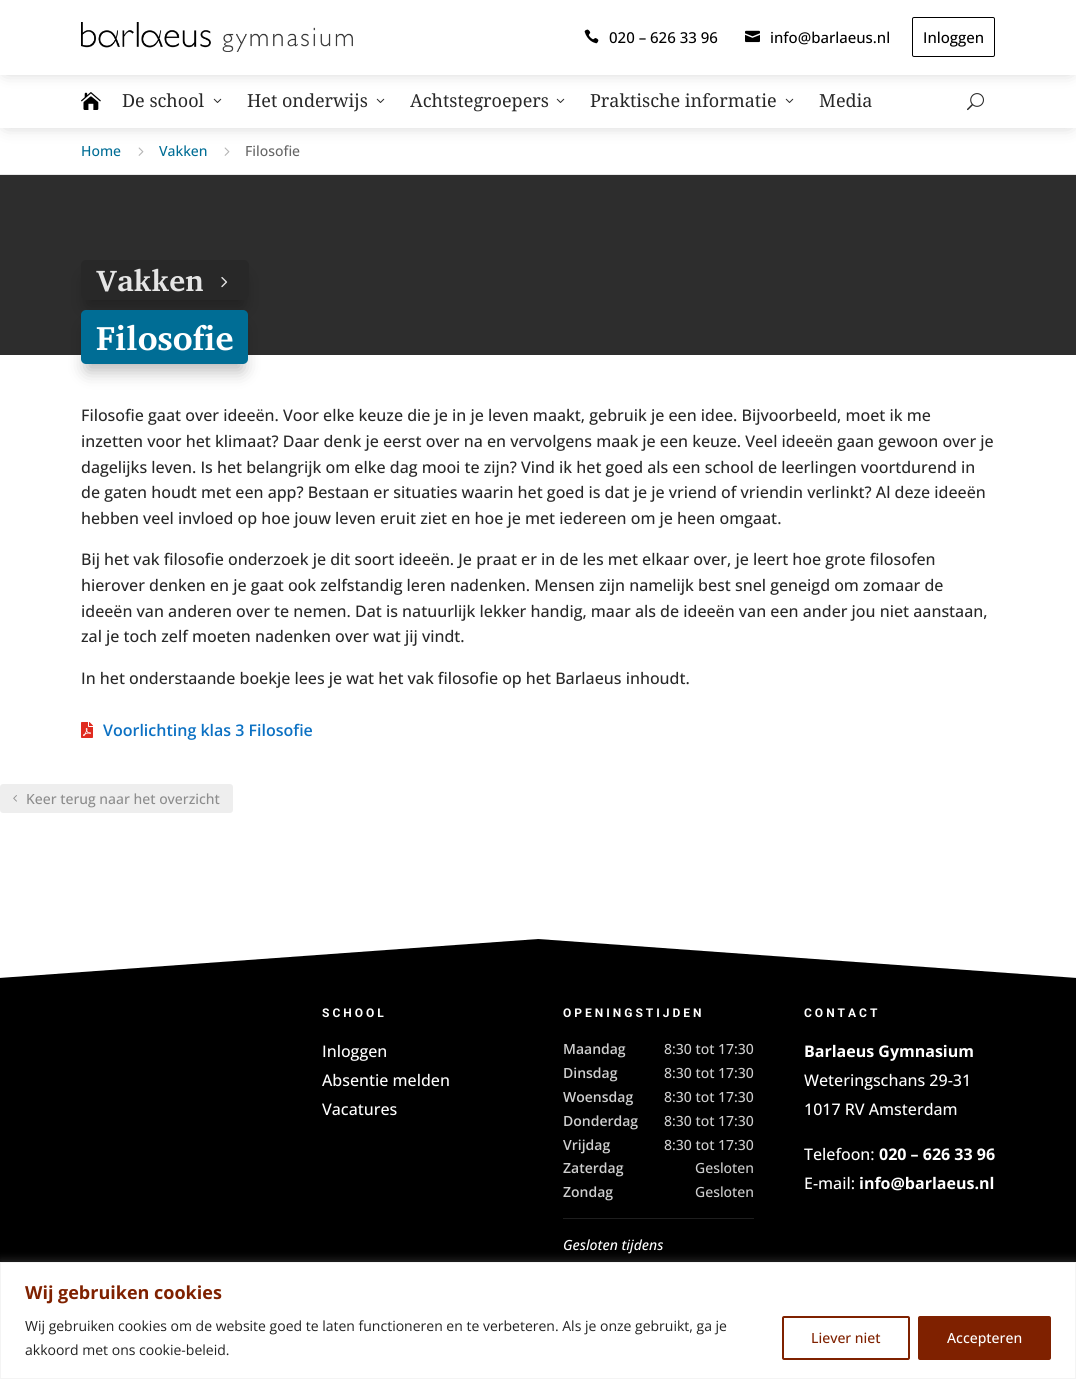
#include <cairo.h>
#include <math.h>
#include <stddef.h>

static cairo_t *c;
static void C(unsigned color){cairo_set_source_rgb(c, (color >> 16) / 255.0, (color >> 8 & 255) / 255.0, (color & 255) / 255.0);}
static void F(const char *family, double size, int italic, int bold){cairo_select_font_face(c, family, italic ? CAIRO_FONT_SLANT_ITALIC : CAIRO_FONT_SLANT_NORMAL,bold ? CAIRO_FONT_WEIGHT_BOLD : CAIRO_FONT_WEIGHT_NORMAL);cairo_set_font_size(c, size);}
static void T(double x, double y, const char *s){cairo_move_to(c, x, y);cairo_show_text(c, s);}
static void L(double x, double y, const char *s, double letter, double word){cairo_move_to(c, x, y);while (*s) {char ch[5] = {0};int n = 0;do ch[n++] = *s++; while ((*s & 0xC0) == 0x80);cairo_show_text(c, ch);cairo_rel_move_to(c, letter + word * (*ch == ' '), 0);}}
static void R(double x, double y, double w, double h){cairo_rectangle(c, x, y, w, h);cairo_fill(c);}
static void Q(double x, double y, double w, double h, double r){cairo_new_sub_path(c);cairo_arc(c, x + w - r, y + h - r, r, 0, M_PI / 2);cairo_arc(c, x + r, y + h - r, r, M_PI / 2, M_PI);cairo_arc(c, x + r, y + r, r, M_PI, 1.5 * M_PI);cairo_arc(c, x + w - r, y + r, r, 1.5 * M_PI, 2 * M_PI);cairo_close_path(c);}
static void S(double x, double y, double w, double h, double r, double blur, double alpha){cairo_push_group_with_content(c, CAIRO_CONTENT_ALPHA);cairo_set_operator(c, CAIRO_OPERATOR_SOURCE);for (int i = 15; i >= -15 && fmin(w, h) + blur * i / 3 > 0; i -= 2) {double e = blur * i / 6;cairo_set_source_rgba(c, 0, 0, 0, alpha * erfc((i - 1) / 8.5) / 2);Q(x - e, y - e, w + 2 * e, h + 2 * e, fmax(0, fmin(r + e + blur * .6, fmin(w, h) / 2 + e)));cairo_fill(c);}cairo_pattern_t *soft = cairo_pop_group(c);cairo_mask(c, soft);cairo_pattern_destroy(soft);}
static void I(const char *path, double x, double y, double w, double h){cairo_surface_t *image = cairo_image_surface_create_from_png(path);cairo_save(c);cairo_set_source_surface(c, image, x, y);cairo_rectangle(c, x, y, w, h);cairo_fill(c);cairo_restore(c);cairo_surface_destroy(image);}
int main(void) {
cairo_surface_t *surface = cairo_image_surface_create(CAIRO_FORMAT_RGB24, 1076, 1379);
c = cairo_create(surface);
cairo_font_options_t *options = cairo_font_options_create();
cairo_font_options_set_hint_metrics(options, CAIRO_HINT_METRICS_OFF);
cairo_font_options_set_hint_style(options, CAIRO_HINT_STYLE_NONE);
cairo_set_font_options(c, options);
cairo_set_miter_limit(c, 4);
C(0xffffff);
cairo_paint(c);
I("7.png",138,147,6,9);
I("7.png",224,147,6,9);
C(0x000000);
S(6,83,1064,41,0,9,.25);
C(0xffffff);
R(0,75,1076,53);
I("4.png",81,92,20,18);
I("6.png",967,93,17,18);
C(0x000000);
S(6,5,1064,64,0,9,.3);
C(0xffffff);
R(0,0,1076,75);
I("1.png",81,22,272,30);
I("2.png",584,29,15,15);
F("Open Sans Medium",15,0,0);
C(0x000000);
T(609,43,"020 – 626 33 96");
I("3.png",745,30,15,13);
T(770,43,"info@barlaeus.nl");
Q(912.5,17.5,82,39,1.5);
cairo_set_line_width(c,1);
cairo_stroke(c);
T(923,43,"Inloggen");
F("Noto Serif",18,0,0);
C(0x282828);
T(122,107,"De school");
I("5.png",213,98,9,5);
T(247,107,"Het onderwijs");
I("5.png",376,98,9,5);
T(410,107,"Achtstegroepers");
I("5.png",556,98,9,5);
T(590,107,"Praktische informatie");
I("5.png",785,98,9,5);
T(819,107,"Media");
C(0xe8e8e8);
R(0,174,1076,1);
F("Open Sans Medium",14,0,0);
C(0x006d95);
T(81,156,"Home");
T(159,156,"Vakken");
C(0x666666);
T(245,156,"Filosofie");
C(0x2d2d2d);
R(0,175,1076,180);
C(0x000000);
S(87,278,156,28,0,9,.3);
C(0x282828);
Q(81,260,168,40,5);
cairo_fill(c);
F("Charis SIL",30,0,1);
C(0xe5e5e5);
T(96,291,"Vakken");
I("8.png",221,277,7,11);
C(0x000000);
S(87,328,155,42,0,9,.3);
C(0x006d95);
Q(81,310,167,54,5);
cairo_fill(c);
F("Charis SIL",34,0,1);
C(0xffffff);
T(96,350,"Filosofie");
F("Open Sans Medium",16,0,0);
C(0x282828);
T(81,421,"Filosofie gaat over ideeën. Voor elke keuze die je in je leven maakt, gebruik je een idee. Bijvoorbeeld, moet ik me");
T(81,447,"inzetten voor het klimaat? Daar denk je eerst over na en vervolgens maak je een keuze. Veel ideeën gaan gewoon over je");
T(81,473,"dagelijks leven. Is het belangrijk om elke dag mooi te zijn? Vind ik het goed als een school de leerlingen voortdurend in");
T(81,498,"de gaten houdt met een app? Bestaan er situaties waarin het goed is dat je je vriend of vriendin verlinkt? Al deze ideeën");
T(81,524,"hebben veel invloed op hoe jouw leven eruit ziet en hoe je met iedereen om je heen omgaat.");
T(81,565,"Bij het vak filosofie onderzoek je dit soort ideeën. Je praat er in de les met elkaar over, je leert hoe grote filosofen");
T(81,591,"hierover denken en je gaat ook zelfstandig leren nadenken. Mensen zijn namelijk best snel geneigd om zomaar de");
T(81,617,"ideeën van anderen over te nemen. Dat is natuurlijk lekker handig, maar als de ideeën van een ander jou niet aanstaan,");
T(81,642,"zal je toch zelf moeten nadenken over wat jij vindt.");
T(81,684,"In het onderstaande boekje lees je wat het vak filosofie op het Barlaeus inhoudt.");
I("9.png",81,722,12,16);
F("Open Sans SemiBold",16,0,0);
C(0x0c71c3);
T(103,736,"Voorlichting klas 3 Filosofie");
C(0xeeeeee);
Q(0,784,233,29,3);
cairo_fill(c);
I("10.png",13,795,4,7);
F("Open Sans Medium",14,0,0);
C(0x8c8c8c);
T(26,804,"Keer terug naar het overzicht");
C(0x000000);
R(0,939,1076,323);
cairo_save(c);
cairo_rectangle(c,0,848,1076,185);
cairo_clip(c);
C(0xffffff);
cairo_new_path(c);
cairo_move_to(c,-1,978);
cairo_line_to(c,-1,847);
cairo_line_to(c,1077,847);
cairo_line_to(c,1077,978);
cairo_line_to(c,538,939);
cairo_close_path(c);
cairo_fill(c);
cairo_restore(c);
F("Roboto",12,0,1);
C(0xffffff);
L(322,1017,"SCHOOL",3,0);
F("Open Sans Medium",16,0,0);
T(322,1057,"Inloggen");
T(322,1086,"Absentie melden");
T(322,1115,"Vacatures");
F("Roboto",12,0,1);
L(563,1017,"OPENINGSTIJDEN",3,0);
F("Open Sans SemiBold",14,0,0);
C(0xcecece);
T(563,1054,"Maandag");
F("Open Sans Medium",14,0,0);
T(664,1054,"8:30 tot 17:30");
F("Open Sans SemiBold",14,0,0);
T(563,1078,"Dinsdag");
F("Open Sans Medium",14,0,0);
T(664,1078,"8:30 tot 17:30");
F("Open Sans SemiBold",14,0,0);
T(563,1102,"Woensdag");
F("Open Sans Medium",14,0,0);
T(664,1102,"8:30 tot 17:30");
F("Open Sans SemiBold",14,0,0);
T(563,1126,"Donderdag");
F("Open Sans Medium",14,0,0);
T(664,1126,"8:30 tot 17:30");
F("Open Sans SemiBold",14,0,0);
T(563,1150,"Vrijdag");
F("Open Sans Medium",14,0,0);
T(664,1150,"8:30 tot 17:30");
F("Open Sans SemiBold",14,0,0);
T(563,1173,"Zaterdag");
F("Open Sans Medium",14,0,0);
T(695,1173,"Gesloten");
F("Open Sans SemiBold",14,0,0);
T(563,1197,"Zondag");
F("Open Sans Medium",14,0,0);
T(695,1197,"Gesloten");
C(0x1e1e1e);
R(563,1218,191,1);
F("Open Sans Medium",14,1,0);
C(0xffffff);
T(563,1250,"Gesloten tijdens");
F("Roboto",12,0,1);
L(804,1017,"CONTACT",3,0);
F("Open Sans",16,0,1);
T(804,1057,"Barlaeus Gymnasium");
F("Open Sans Medium",16,0,0);
T(804,1086,"Weteringschans 29-31");
T(804,1115,"1017 RV Amsterdam");
T(804,1160,"Telefoon:");
F("Open Sans",16,0,1);
T(879,1160,"020 – 626 33 96");
F("Open Sans Medium",16,0,0);
T(804,1189,"E-mail:");
F("Open Sans",16,0,1);
T(859,1189,"info@barlaeus.nl");
C(0xacabab);
S(0,1261,1076,117,0,5,.3);
C(0xffffff);
cairo_rectangle(c,.5,1262.5,1075,116);
cairo_fill_preserve(c);
C(0xf4f4f4);
cairo_stroke(c);
F("Open Sans",18,0,1);
C(0x7f2100);
T(25,1299,"Wij gebruiken cookies");
F("Open Sans",14,0,0);
C(0x212121);
T(25,1331,"Wij gebruiken cookies om de website goed te laten functioneren en te verbeteren. Als je onze gebruikt, ga je");
T(25,1355,"akkoord met ons cookie-beleid.");
Q(783,1317,126,42,1);
C(0x7f2100);
cairo_set_line_width(c,2);
cairo_stroke(c);
F("Open Sans Medium",14,0,0);
T(811,1343,"Liever niet");
Q(919,1317,131,42,1);
cairo_fill_preserve(c);
cairo_stroke(c);
C(0xffffff);
T(947,1343,"Accepteren");
cairo_surface_write_to_png(surface, "o.png");
cairo_font_options_destroy(options);
cairo_destroy(c);
cairo_surface_destroy(surface);
return 0;
}
